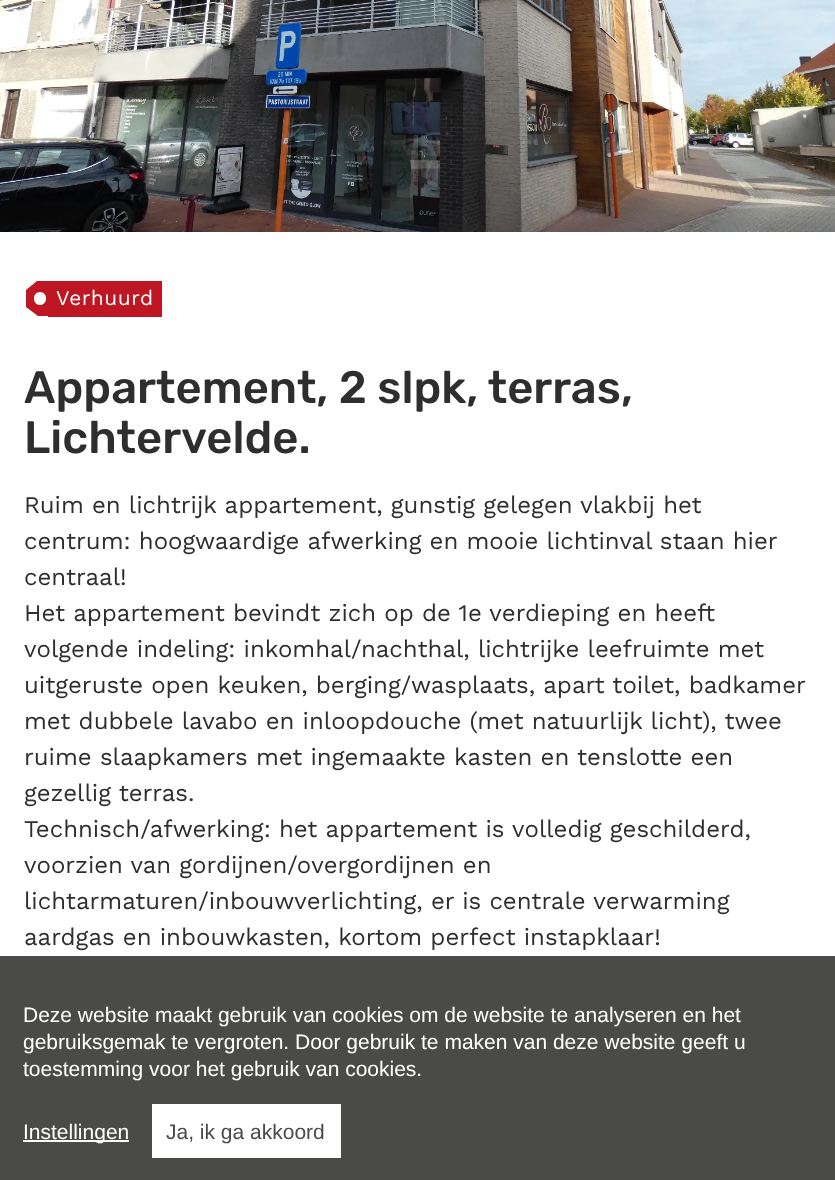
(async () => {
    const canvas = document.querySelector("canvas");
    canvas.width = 835;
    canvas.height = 1180;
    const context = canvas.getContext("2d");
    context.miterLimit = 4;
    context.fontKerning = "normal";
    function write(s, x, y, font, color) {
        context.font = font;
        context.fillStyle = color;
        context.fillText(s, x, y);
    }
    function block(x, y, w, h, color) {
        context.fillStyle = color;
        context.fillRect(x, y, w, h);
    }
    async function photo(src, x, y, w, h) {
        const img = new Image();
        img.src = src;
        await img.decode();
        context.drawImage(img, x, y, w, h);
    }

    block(0, 0, 835, 1180, "rgb(255, 255, 255)");
    await photo("media/1.png", 0, 0, 835, 232);
    context.save();
    context.beginPath();
    context.rect(24, 281, 24, 36);
    context.clip();
    context.fillStyle = "rgb(190, 22, 34)";
    context.beginPath();
    context.moveTo(26, 307);
    context.lineTo(26, 290);
    context.lineTo(37, 281);
    context.lineTo(308, 281);
    context.lineTo(308, 316);
    context.lineTo(38, 316);
    context.closePath();
    context.moveTo(40, 292);
    context.bezierCurveTo(32, 292, 32, 305, 40, 305);
    context.bezierCurveTo(48, 305, 48, 292, 40, 292);
    context.closePath();
    context.fill("evenodd");
    context.restore();
    block(48, 281, 114, 36, "rgb(190, 22, 34)");
    context.letterSpacing = "0.5px";
    write("Verhuurd", 56, 305, "21px Work Sans", "rgb(255, 255, 255)");
    context.letterSpacing = "0px";
    write("Appartement, 2 slpk, terras,", 24, 403, "300 45.4px Rubik", "rgb(46, 46, 46)");
    write("Lichtervelde.", 24, 453, "300 45.4px Rubik", "rgb(46, 46, 46)");
    write("Ruim en lichtrijk appartement, gunstig gelegen vlakbij het", 24, 513, "24px Work Sans", "rgb(46, 46, 46)");
    write("centrum: hoogwaardige afwerking en mooie lichtinval staan hier", 24, 549, "24px Work Sans", "rgb(46, 46, 46)");
    write("centraal!", 24, 585, "24px Work Sans", "rgb(46, 46, 46)");
    write("Het appartement bevindt zich op de 1e verdieping en heeft", 24, 621, "24px Work Sans", "rgb(46, 46, 46)");
    write("volgende indeling: inkomhal/nachthal, lichtrijke leefruimte met", 24, 657, "24px Work Sans", "rgb(46, 46, 46)");
    write("uitgeruste open keuken, berging/wasplaats, apart toilet, badkamer", 24, 693, "24px Work Sans", "rgb(46, 46, 46)");
    write("met dubbele lavabo en inloopdouche (met natuurlijk licht), twee", 24, 729, "24px Work Sans", "rgb(46, 46, 46)");
    write("ruime slaapkamers met ingemaakte kasten en tenslotte een", 24, 765, "24px Work Sans", "rgb(46, 46, 46)");
    write("gezellig terras.", 24, 801, "24px Work Sans", "rgb(46, 46, 46)");
    write("Technisch/afwerking: het appartement is volledig geschilderd,", 24, 837, "24px Work Sans", "rgb(46, 46, 46)");
    write("voorzien van gordijnen/overgordijnen en", 24, 873, "24px Work Sans", "rgb(46, 46, 46)");
    write("lichtarmaturen/inbouwverlichting, er is centrale verwarming", 24, 909, "24px Work Sans", "rgb(46, 46, 46)");
    write("aardgas en inbouwkasten, kortom perfect instapklaar!", 24, 945, "24px Work Sans", "rgb(46, 46, 46)");
    block(0, 956, 835, 224, "rgb(74, 74, 73)");
    write("Deze website maakt gebruik van cookies om de website te analyseren en het", 23, 1022, "21px Liberation Sans", "rgb(255, 255, 255)");
    write("gebruiksgemak te vergroten. Door gebruik te maken van deze website geeft u", 23, 1049, "21px Liberation Sans", "rgb(255, 255, 255)");
    write("toestemming voor het gebruik van cookies.", 23, 1076, "21px Liberation Sans", "rgb(255, 255, 255)");
    block(23, 1140, 106, 2, "rgb(255, 255, 255)");
    write("Instellingen", 23, 1139, "21px Liberation Sans", "rgb(255, 255, 255)");
    block(152, 1104, 189, 54, "rgb(255, 255, 255)");
    write("Ja, ik ga akkoord", 166, 1139, "21px Liberation Sans", "rgb(74, 74, 73)");
})();
